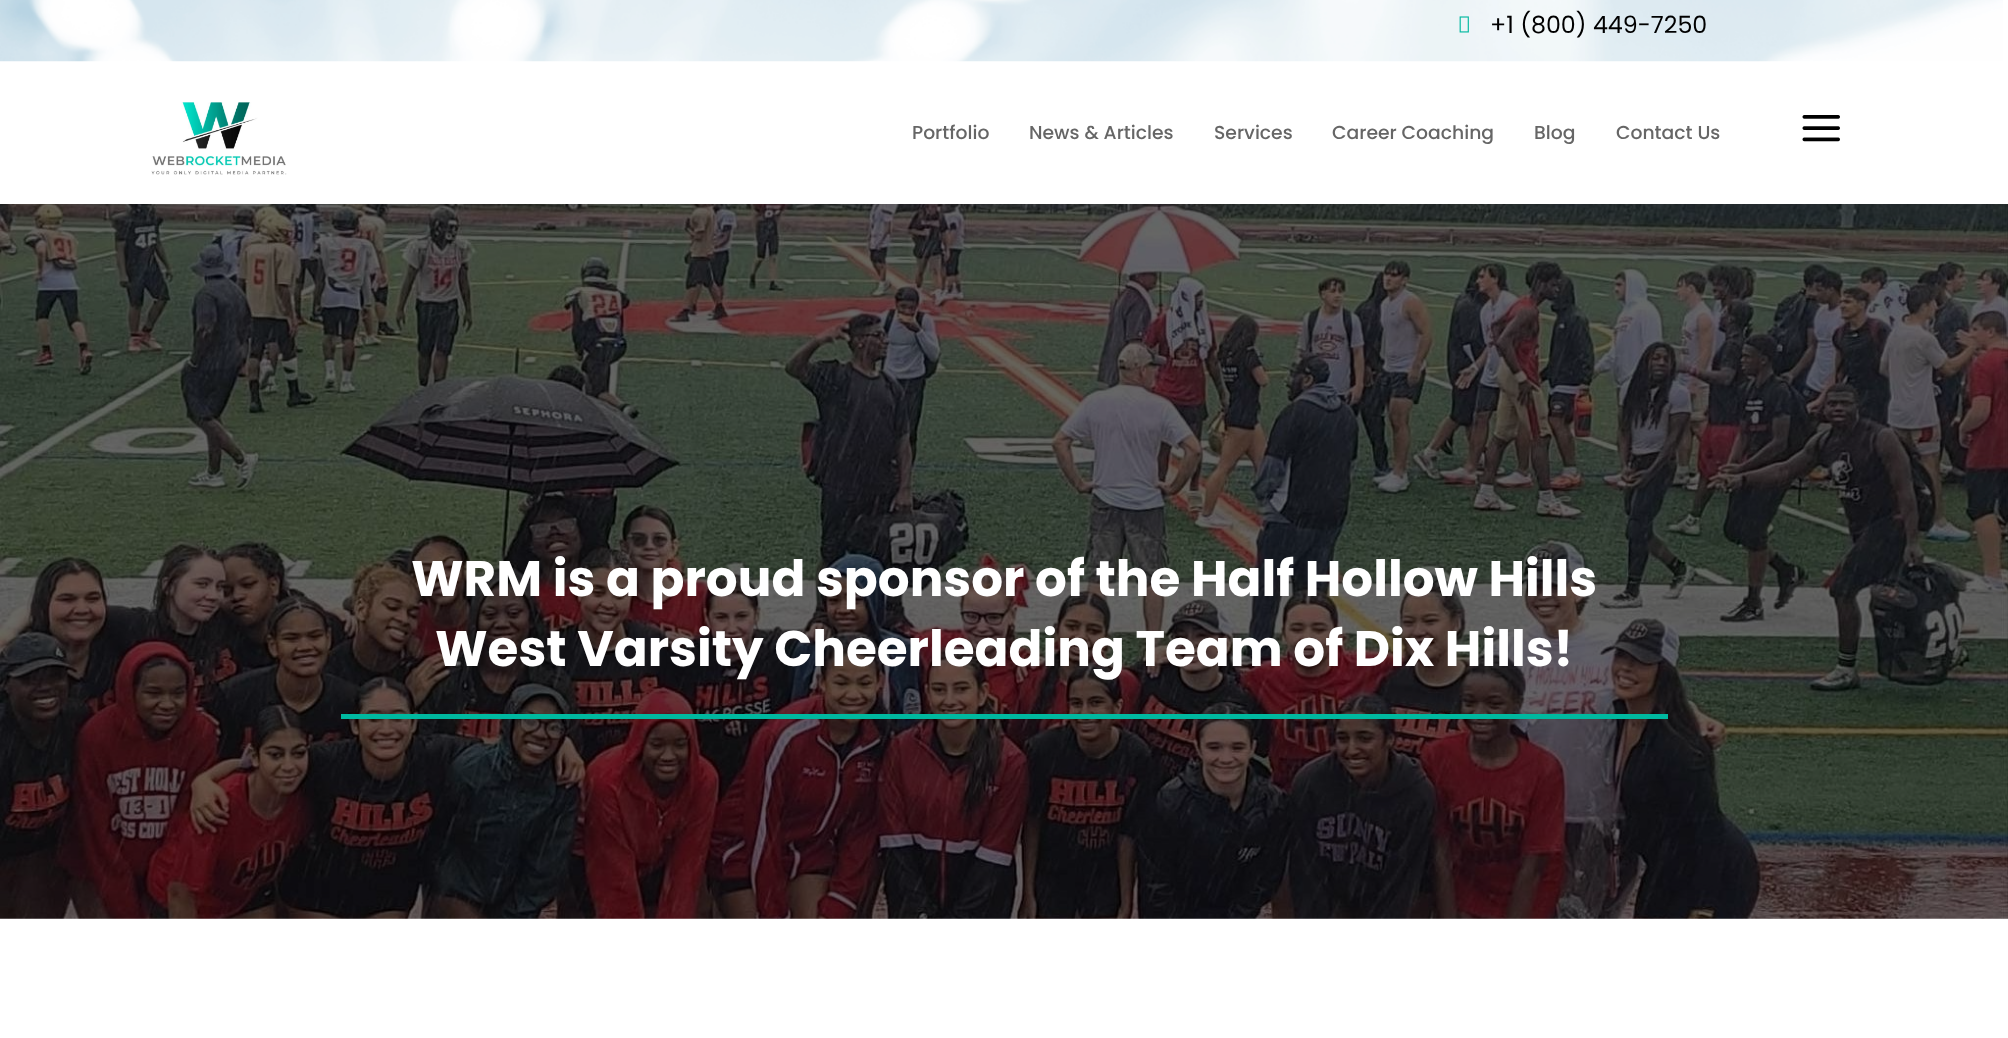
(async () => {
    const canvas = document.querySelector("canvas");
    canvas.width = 2008;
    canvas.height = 1038;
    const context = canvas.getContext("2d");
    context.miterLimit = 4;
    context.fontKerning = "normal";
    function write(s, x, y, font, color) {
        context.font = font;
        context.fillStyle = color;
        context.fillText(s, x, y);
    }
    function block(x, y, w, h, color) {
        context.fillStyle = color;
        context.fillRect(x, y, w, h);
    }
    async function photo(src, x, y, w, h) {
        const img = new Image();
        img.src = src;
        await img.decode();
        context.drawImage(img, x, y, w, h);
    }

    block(0, 0, 2008, 1038, "rgb(255, 255, 255)");
    await photo("media/1.png", 0, 0, 2003, 62);
    await photo("media/2.png", 1459, 16, 10, 17);
    write("+1 (800) 449-7250", 1490, 33, "23.75px Poppins", "rgb(0, 0, 0)");
    await photo("media/3.png", 151, 102, 136, 73);
    write("Portfolio", 912, 139, "500 18.75px Poppins", "rgb(102, 102, 102)");
    write("News & Articles", 1029, 139, "500 18.75px Poppins", "rgb(102, 102, 102)");
    write("Services", 1214, 139, "500 18.75px Poppins", "rgb(102, 102, 102)");
    write("Career Coaching", 1332, 139, "500 18.75px Poppins", "rgb(102, 102, 102)");
    write("Blog", 1534, 139, "500 18.75px Poppins", "rgb(102, 102, 102)");
    write("Contact Us", 1616, 139, "500 18.75px Poppins", "rgb(102, 102, 102)");
    await photo("media/4.png", 1802, 115, 38, 27);
    await photo("media/5.png", 0, 204, 2008, 715);
    write("WRM is a proud sponsor of the Half Hollow Hills", 411, 596, "bold 50px Poppins", "rgb(255, 255, 255)");
    write("West Varsity Cheerleading Team of Dix Hills!", 435, 666, "bold 50px Poppins", "rgb(255, 255, 255)");
    block(341, 714, 1327, 5, "rgb(0, 184, 159)");
})();
